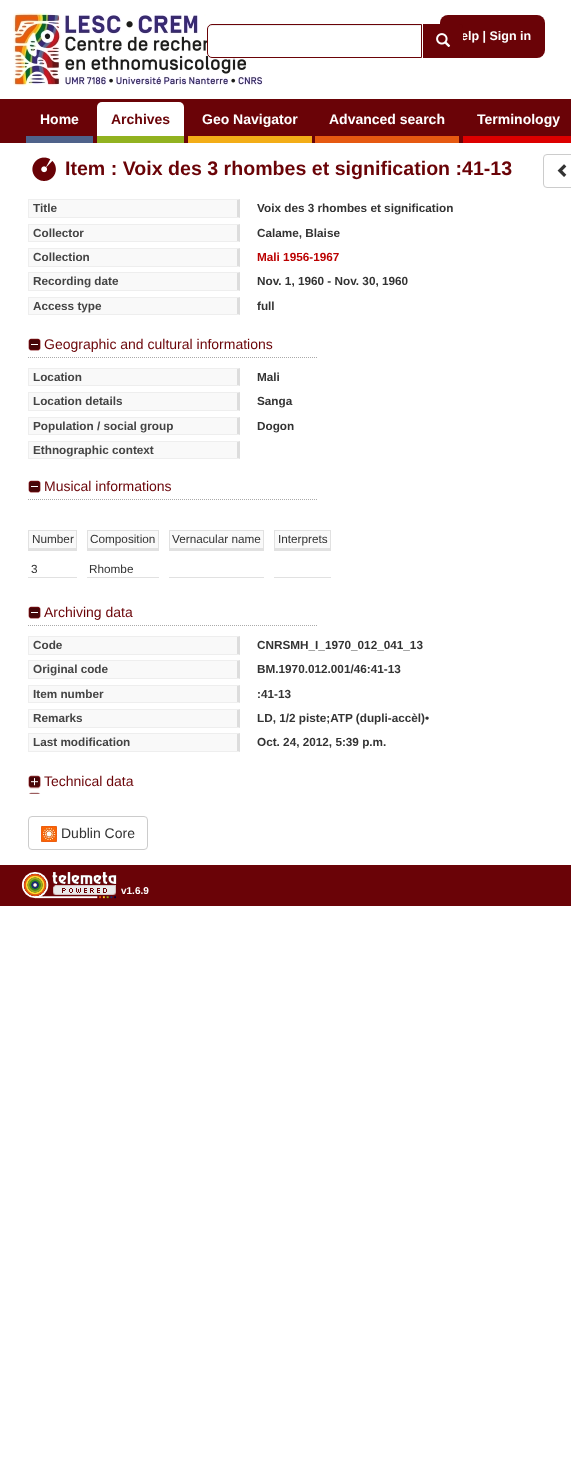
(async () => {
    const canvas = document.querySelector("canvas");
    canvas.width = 571;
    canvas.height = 1466;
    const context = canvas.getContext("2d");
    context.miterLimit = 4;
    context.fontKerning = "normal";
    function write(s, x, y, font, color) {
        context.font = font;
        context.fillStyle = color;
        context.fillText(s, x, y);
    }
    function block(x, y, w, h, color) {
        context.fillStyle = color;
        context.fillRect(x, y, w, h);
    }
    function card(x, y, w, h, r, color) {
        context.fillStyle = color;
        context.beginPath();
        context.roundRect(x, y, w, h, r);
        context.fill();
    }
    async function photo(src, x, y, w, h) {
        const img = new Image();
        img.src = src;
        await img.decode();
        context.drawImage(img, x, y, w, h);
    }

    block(0, 0, 571, 1466, "rgb(255, 255, 255)");
    await photo("media/1.png", 13, 13, 250, 73);
    context.beginPath();
    context.roundRect(207, 24, 215, 34, [5, 0, 0, 5]);
    context.fill();
    context.fillStyle = "rgb(236, 236, 236)";
    context.beginPath();
    context.moveTo(212, 26);
    context.lineTo(421, 26);
    context.lineTo(421, 25);
    context.lineTo(210, 25);
    context.bezierCurveTo(208, 26, 208, 28, 208, 30);
    context.bezierCurveTo(208, 28, 210, 26, 212, 26);
    context.closePath();
    context.fill();
    context.beginPath();
    context.roundRect(207.5, 24.5, 214, 33, [4.5, 0, 0, 4.5]);
    context.strokeStyle = "rgb(106, 3, 7)";
    context.stroke();
    card(440, 15, 105, 43, 8, "rgb(106, 3, 7)");
    write("elp | Sign in", 461, 40, "bold 12.5px Liberation Sans", "rgb(255, 255, 255)");
    context.fillStyle = "rgb(106, 3, 7)";
    context.beginPath();
    context.roundRect(423, 24, 40, 34, [0, 4, 4, 0]);
    context.fill();
    await photo("media/2.png", 436, 33, 15, 14);
    block(0, 99, 571, 44, "rgb(106, 3, 7)");
    block(26, 136, 67, 7, "rgb(79, 98, 138)");
    write("Home", 40, 124, "bold 14px Liberation Sans", "rgb(255, 255, 255)");
    context.beginPath();
    context.roundRect(97, 102, 87, 41, [5, 5, 0, 0]);
    context.fill();
    block(97, 136, 87, 7, "rgb(146, 178, 32)");
    write("Archives", 111, 124, "bold 14px Liberation Sans", "rgb(106, 3, 7)");
    block(188, 136, 124, 7, "rgb(243, 173, 23)");
    write("Geo Navigator", 202, 124, "bold 14px Liberation Sans", "rgb(255, 255, 255)");
    block(315, 136, 144, 7, "rgb(230, 89, 17)");
    write("Advanced search", 329, 124, "bold 14px Liberation Sans", "rgb(255, 255, 255)");
    block(463, 136, 108, 7, "rgb(221, 0, 0)");
    write("Terminology", 477, 124, "bold 14px Liberation Sans", "rgb(255, 255, 255)");
    await photo("media/3.png", 32, 157, 24, 24);
    write("Item : Voix des 3 rhombes et signification :41-13", 65, 175, "bold 19.6px Liberation Sans", "rgb(106, 3, 7)");
    context.beginPath();
    context.roundRect(543.5, 154.5, 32, 33, 3.5);
    context.strokeStyle = "rgb(204, 204, 204)";
    context.stroke();
    await photo("media/4.png", 557, 164, 10, 13);
    block(29, 200, 208, 17, "rgb(249, 249, 249)");
    context.fillStyle = "rgb(238, 238, 238)";
    context.beginPath();
    context.moveTo(28, 199);
    context.lineTo(240, 199);
    context.lineTo(237, 200);
    context.lineTo(29, 200);
    context.closePath();
    context.fill();
    context.fillStyle = "rgb(221, 221, 221)";
    context.beginPath();
    context.moveTo(240, 199);
    context.lineTo(240, 218);
    context.lineTo(237, 217);
    context.lineTo(237, 200);
    context.closePath();
    context.fill();
    context.fillStyle = "rgb(238, 238, 238)";
    context.beginPath();
    context.moveTo(240, 218);
    context.lineTo(28, 218);
    context.lineTo(29, 217);
    context.lineTo(237, 217);
    context.closePath();
    context.fill();
    block(28, 199, 1, 19, "rgb(238, 238, 238)");
    write("Title", 33, 212, "bold 11.75px Liberation Sans", "rgb(68, 68, 68)");
    write("Voix des 3 rhombes et signification", 257, 212, "bold 11.75px Liberation Sans", "rgb(51, 51, 51)");
    block(29, 225, 208, 16, "rgb(249, 249, 249)");
    context.fillStyle = "rgb(238, 238, 238)";
    context.beginPath();
    context.moveTo(28, 224);
    context.lineTo(240, 224);
    context.lineTo(237, 225);
    context.lineTo(29, 225);
    context.closePath();
    context.fill();
    context.fillStyle = "rgb(221, 221, 221)";
    context.beginPath();
    context.moveTo(240, 224);
    context.lineTo(240, 242);
    context.lineTo(237, 241);
    context.lineTo(237, 225);
    context.closePath();
    context.fill();
    context.fillStyle = "rgb(238, 238, 238)";
    context.beginPath();
    context.moveTo(240, 242);
    context.lineTo(28, 242);
    context.lineTo(29, 241);
    context.lineTo(237, 241);
    context.closePath();
    context.fill();
    block(28, 224, 1, 18, "rgb(238, 238, 238)");
    write("Collector", 33, 237, "bold 11.75px Liberation Sans", "rgb(68, 68, 68)");
    write("Calame, Blaise", 257, 237, "bold 11.75px Liberation Sans", "rgb(51, 51, 51)");
    block(29, 249, 208, 17, "rgb(249, 249, 249)");
    context.fillStyle = "rgb(238, 238, 238)";
    context.beginPath();
    context.moveTo(28, 248);
    context.lineTo(240, 248);
    context.lineTo(237, 249);
    context.lineTo(29, 249);
    context.closePath();
    context.fill();
    context.fillStyle = "rgb(221, 221, 221)";
    context.beginPath();
    context.moveTo(240, 248);
    context.lineTo(240, 267);
    context.lineTo(237, 266);
    context.lineTo(237, 249);
    context.closePath();
    context.fill();
    context.fillStyle = "rgb(238, 238, 238)";
    context.beginPath();
    context.moveTo(240, 267);
    context.lineTo(28, 267);
    context.lineTo(29, 266);
    context.lineTo(237, 266);
    context.closePath();
    context.fill();
    block(28, 248, 1, 19, "rgb(238, 238, 238)");
    write("Collection", 33, 261, "bold 11.75px Liberation Sans", "rgb(68, 68, 68)");
    write("Mali 1956-1967", 257, 261, "bold 11.75px Liberation Sans", "rgb(187, 0, 0)");
    block(29, 273, 208, 17, "rgb(249, 249, 249)");
    context.fillStyle = "rgb(238, 238, 238)";
    context.beginPath();
    context.moveTo(28, 272);
    context.lineTo(240, 272);
    context.lineTo(237, 273);
    context.lineTo(29, 273);
    context.closePath();
    context.fill();
    context.fillStyle = "rgb(221, 221, 221)";
    context.beginPath();
    context.moveTo(240, 272);
    context.lineTo(240, 291);
    context.lineTo(237, 290);
    context.lineTo(237, 273);
    context.closePath();
    context.fill();
    context.fillStyle = "rgb(238, 238, 238)";
    context.beginPath();
    context.moveTo(240, 291);
    context.lineTo(28, 291);
    context.lineTo(29, 290);
    context.lineTo(237, 290);
    context.closePath();
    context.fill();
    block(28, 272, 1, 19, "rgb(238, 238, 238)");
    write("Recording date", 33, 285, "bold 11.75px Liberation Sans", "rgb(68, 68, 68)");
    write("Nov. 1, 1960 - Nov. 30, 1960", 257, 285, "bold 11.75px Liberation Sans", "rgb(51, 51, 51)");
    block(29, 298, 208, 16, "rgb(249, 249, 249)");
    context.fillStyle = "rgb(238, 238, 238)";
    context.beginPath();
    context.moveTo(28, 297);
    context.lineTo(240, 297);
    context.lineTo(237, 298);
    context.lineTo(29, 298);
    context.closePath();
    context.fill();
    context.fillStyle = "rgb(221, 221, 221)";
    context.beginPath();
    context.moveTo(240, 297);
    context.lineTo(240, 315);
    context.lineTo(237, 314);
    context.lineTo(237, 298);
    context.closePath();
    context.fill();
    context.fillStyle = "rgb(238, 238, 238)";
    context.beginPath();
    context.moveTo(240, 315);
    context.lineTo(28, 315);
    context.lineTo(29, 314);
    context.lineTo(237, 314);
    context.closePath();
    context.fill();
    block(28, 297, 1, 18, "rgb(238, 238, 238)");
    write("Access type", 33, 310, "bold 11.75px Liberation Sans", "rgb(68, 68, 68)");
    write("full", 257, 310, "bold 11.75px Liberation Sans", "rgb(51, 51, 51)");
    context.beginPath();
    context.moveTo(28, 357.5);
    context.lineTo(317, 357.5);
    context.strokeStyle = "rgb(170, 170, 170)";
    context.setLineDash([1, 1]);
    context.stroke();
    await photo("media/5.png", 28, 338, 13, 13);
    write("Geographic and cultural informations", 44, 349, "14px Liberation Sans", "rgb(106, 3, 7)");
    block(29, 369, 208, 16, "rgb(249, 249, 249)");
    context.fillStyle = "rgb(238, 238, 238)";
    context.beginPath();
    context.moveTo(28, 368);
    context.lineTo(240, 368);
    context.lineTo(237, 369);
    context.lineTo(29, 369);
    context.closePath();
    context.fill();
    context.fillStyle = "rgb(221, 221, 221)";
    context.beginPath();
    context.moveTo(240, 368);
    context.lineTo(240, 386);
    context.lineTo(237, 385);
    context.lineTo(237, 369);
    context.closePath();
    context.fill();
    context.fillStyle = "rgb(238, 238, 238)";
    context.beginPath();
    context.moveTo(240, 386);
    context.lineTo(28, 386);
    context.lineTo(29, 385);
    context.lineTo(237, 385);
    context.closePath();
    context.fill();
    block(28, 368, 1, 18, "rgb(238, 238, 238)");
    write("Location", 33, 381, "bold 11.75px Liberation Sans", "rgb(68, 68, 68)");
    write("Mali", 257, 381, "bold 11.75px Liberation Sans", "rgb(51, 51, 51)");
    block(29, 393, 208, 17, "rgb(249, 249, 249)");
    context.fillStyle = "rgb(238, 238, 238)";
    context.beginPath();
    context.moveTo(28, 392);
    context.lineTo(240, 392);
    context.lineTo(237, 393);
    context.lineTo(29, 393);
    context.closePath();
    context.fill();
    context.fillStyle = "rgb(221, 221, 221)";
    context.beginPath();
    context.moveTo(240, 392);
    context.lineTo(240, 411);
    context.lineTo(237, 410);
    context.lineTo(237, 393);
    context.closePath();
    context.fill();
    context.fillStyle = "rgb(238, 238, 238)";
    context.beginPath();
    context.moveTo(240, 411);
    context.lineTo(28, 411);
    context.lineTo(29, 410);
    context.lineTo(237, 410);
    context.closePath();
    context.fill();
    block(28, 392, 1, 19, "rgb(238, 238, 238)");
    write("Location details", 33, 405, "bold 11.75px Liberation Sans", "rgb(68, 68, 68)");
    write("Sanga", 257, 405, "bold 11.75px Liberation Sans", "rgb(51, 51, 51)");
    block(29, 418, 208, 16, "rgb(249, 249, 249)");
    context.fillStyle = "rgb(238, 238, 238)";
    context.beginPath();
    context.moveTo(28, 417);
    context.lineTo(240, 417);
    context.lineTo(237, 418);
    context.lineTo(29, 418);
    context.closePath();
    context.fill();
    context.fillStyle = "rgb(221, 221, 221)";
    context.beginPath();
    context.moveTo(240, 417);
    context.lineTo(240, 435);
    context.lineTo(237, 434);
    context.lineTo(237, 418);
    context.closePath();
    context.fill();
    context.fillStyle = "rgb(238, 238, 238)";
    context.beginPath();
    context.moveTo(240, 435);
    context.lineTo(28, 435);
    context.lineTo(29, 434);
    context.lineTo(237, 434);
    context.closePath();
    context.fill();
    block(28, 417, 1, 18, "rgb(238, 238, 238)");
    write("Population / social group", 33, 430, "bold 11.75px Liberation Sans", "rgb(68, 68, 68)");
    write("Dogon", 257, 430, "bold 11.75px Liberation Sans", "rgb(51, 51, 51)");
    block(29, 442, 208, 16, "rgb(249, 249, 249)");
    context.fillStyle = "rgb(238, 238, 238)";
    context.beginPath();
    context.moveTo(28, 441);
    context.lineTo(240, 441);
    context.lineTo(237, 442);
    context.lineTo(29, 442);
    context.closePath();
    context.fill();
    context.fillStyle = "rgb(221, 221, 221)";
    context.beginPath();
    context.moveTo(240, 441);
    context.lineTo(240, 459);
    context.lineTo(237, 458);
    context.lineTo(237, 442);
    context.closePath();
    context.fill();
    context.fillStyle = "rgb(238, 238, 238)";
    context.beginPath();
    context.moveTo(240, 459);
    context.lineTo(28, 459);
    context.lineTo(29, 458);
    context.lineTo(237, 458);
    context.closePath();
    context.fill();
    block(28, 441, 1, 18, "rgb(238, 238, 238)");
    write("Ethnographic context", 33, 454, "bold 11.75px Liberation Sans", "rgb(68, 68, 68)");
    context.beginPath();
    context.moveTo(28, 499.5);
    context.lineTo(317, 499.5);
    context.stroke();
    await photo("media/5.png", 28, 480, 13, 13);
    write("Musical informations", 44, 491, "14px Liberation Sans", "rgb(106, 3, 7)");
    block(29, 531, 47, 17, "rgb(249, 249, 249)");
    block(28, 530, 49, 1, "rgb(225, 225, 225)");
    block(76, 530, 1, 21, "rgb(225, 225, 225)");
    block(28, 548, 49, 3, "rgb(225, 225, 225)");
    block(28, 530, 1, 21, "rgb(225, 225, 225)");
    write("Number", 32, 543, "11.75px Liberation Sans", "rgb(51, 51, 51)");
    block(88, 531, 70, 17, "rgb(249, 249, 249)");
    block(87, 530, 72, 1, "rgb(225, 225, 225)");
    block(158, 530, 1, 21, "rgb(225, 225, 225)");
    block(87, 548, 72, 3, "rgb(225, 225, 225)");
    block(87, 530, 1, 21, "rgb(225, 225, 225)");
    write("Composition", 90, 543, "11.75px Liberation Sans", "rgb(51, 51, 51)");
    block(170, 531, 93, 17, "rgb(249, 249, 249)");
    block(169, 530, 95, 1, "rgb(225, 225, 225)");
    block(263, 530, 1, 21, "rgb(225, 225, 225)");
    block(169, 548, 95, 3, "rgb(225, 225, 225)");
    block(169, 530, 1, 21, "rgb(225, 225, 225)");
    write("Vernacular name", 172, 543, "11.75px Liberation Sans", "rgb(51, 51, 51)");
    block(275, 531, 55, 17, "rgb(249, 249, 249)");
    block(274, 530, 57, 1, "rgb(225, 225, 225)");
    block(330, 530, 1, 21, "rgb(225, 225, 225)");
    block(274, 548, 57, 3, "rgb(225, 225, 225)");
    block(274, 530, 1, 21, "rgb(225, 225, 225)");
    write("Interprets", 278, 543, "11.75px Liberation Sans", "rgb(51, 51, 51)");
    block(28, 577, 49, 1, "rgb(225, 225, 225)");
    write("3", 31, 573, "11.75px Liberation Sans", "rgb(51, 51, 51)");
    block(87, 577, 72, 1, "rgb(225, 225, 225)");
    write("Rhombe", 89, 573, "11.75px Liberation Sans", "rgb(51, 51, 51)");
    block(169, 577, 95, 1, "rgb(225, 225, 225)");
    block(274, 577, 57, 1, "rgb(225, 225, 225)");
    context.beginPath();
    context.moveTo(28, 625.5);
    context.lineTo(317, 625.5);
    context.stroke();
    await photo("media/5.png", 28, 606, 13, 13);
    write("Archiving data", 44, 617, "14px Liberation Sans", "rgb(106, 3, 7)");
    block(29, 637, 208, 17, "rgb(249, 249, 249)");
    context.fillStyle = "rgb(238, 238, 238)";
    context.beginPath();
    context.moveTo(28, 636);
    context.lineTo(240, 636);
    context.lineTo(237, 637);
    context.lineTo(29, 637);
    context.closePath();
    context.fill();
    context.fillStyle = "rgb(221, 221, 221)";
    context.beginPath();
    context.moveTo(240, 636);
    context.lineTo(240, 655);
    context.lineTo(237, 654);
    context.lineTo(237, 637);
    context.closePath();
    context.fill();
    context.fillStyle = "rgb(238, 238, 238)";
    context.beginPath();
    context.moveTo(240, 655);
    context.lineTo(28, 655);
    context.lineTo(29, 654);
    context.lineTo(237, 654);
    context.closePath();
    context.fill();
    block(28, 636, 1, 19, "rgb(238, 238, 238)");
    write("Code", 33, 649, "bold 11.75px Liberation Sans", "rgb(68, 68, 68)");
    write("CNRSMH_I_1970_012_041_13", 257, 649, "bold 11.75px Liberation Sans", "rgb(51, 51, 51)");
    block(29, 661, 208, 17, "rgb(249, 249, 249)");
    context.fillStyle = "rgb(238, 238, 238)";
    context.beginPath();
    context.moveTo(28, 660);
    context.lineTo(240, 660);
    context.lineTo(237, 661);
    context.lineTo(29, 661);
    context.closePath();
    context.fill();
    context.fillStyle = "rgb(221, 221, 221)";
    context.beginPath();
    context.moveTo(240, 660);
    context.lineTo(240, 679);
    context.lineTo(237, 678);
    context.lineTo(237, 661);
    context.closePath();
    context.fill();
    context.fillStyle = "rgb(238, 238, 238)";
    context.beginPath();
    context.moveTo(240, 679);
    context.lineTo(28, 679);
    context.lineTo(29, 678);
    context.lineTo(237, 678);
    context.closePath();
    context.fill();
    block(28, 660, 1, 19, "rgb(238, 238, 238)");
    write("Original code", 33, 673, "bold 11.75px Liberation Sans", "rgb(68, 68, 68)");
    write("BM.1970.012.001/46:41-13", 257, 673, "bold 11.75px Liberation Sans", "rgb(51, 51, 51)");
    block(29, 686, 208, 16, "rgb(249, 249, 249)");
    context.fillStyle = "rgb(238, 238, 238)";
    context.beginPath();
    context.moveTo(28, 685);
    context.lineTo(240, 685);
    context.lineTo(237, 686);
    context.lineTo(29, 686);
    context.closePath();
    context.fill();
    context.fillStyle = "rgb(221, 221, 221)";
    context.beginPath();
    context.moveTo(240, 685);
    context.lineTo(240, 703);
    context.lineTo(237, 702);
    context.lineTo(237, 686);
    context.closePath();
    context.fill();
    context.fillStyle = "rgb(238, 238, 238)";
    context.beginPath();
    context.moveTo(240, 703);
    context.lineTo(28, 703);
    context.lineTo(29, 702);
    context.lineTo(237, 702);
    context.closePath();
    context.fill();
    block(28, 685, 1, 18, "rgb(238, 238, 238)");
    write("Item number", 33, 698, "bold 11.75px Liberation Sans", "rgb(68, 68, 68)");
    write(":41-13", 257, 698, "bold 11.75px Liberation Sans", "rgb(51, 51, 51)");
    block(29, 710, 208, 17, "rgb(249, 249, 249)");
    context.fillStyle = "rgb(238, 238, 238)";
    context.beginPath();
    context.moveTo(28, 709);
    context.lineTo(240, 709);
    context.lineTo(237, 710);
    context.lineTo(29, 710);
    context.closePath();
    context.fill();
    context.fillStyle = "rgb(221, 221, 221)";
    context.beginPath();
    context.moveTo(240, 709);
    context.lineTo(240, 728);
    context.lineTo(237, 727);
    context.lineTo(237, 710);
    context.closePath();
    context.fill();
    context.fillStyle = "rgb(238, 238, 238)";
    context.beginPath();
    context.moveTo(240, 728);
    context.lineTo(28, 728);
    context.lineTo(29, 727);
    context.lineTo(237, 727);
    context.closePath();
    context.fill();
    block(28, 709, 1, 19, "rgb(238, 238, 238)");
    write("Remarks", 33, 722, "bold 11.75px Liberation Sans", "rgb(68, 68, 68)");
    write("LD, 1/2 piste;ATP (dupli-accèl)•", 257, 722, "bold 11.75px Liberation Sans", "rgb(51, 51, 51)");
    block(29, 734, 208, 17, "rgb(249, 249, 249)");
    context.fillStyle = "rgb(238, 238, 238)";
    context.beginPath();
    context.moveTo(28, 733);
    context.lineTo(240, 733);
    context.lineTo(237, 734);
    context.lineTo(29, 734);
    context.closePath();
    context.fill();
    context.fillStyle = "rgb(221, 221, 221)";
    context.beginPath();
    context.moveTo(240, 733);
    context.lineTo(240, 752);
    context.lineTo(237, 751);
    context.lineTo(237, 734);
    context.closePath();
    context.fill();
    context.fillStyle = "rgb(238, 238, 238)";
    context.beginPath();
    context.moveTo(240, 752);
    context.lineTo(28, 752);
    context.lineTo(29, 751);
    context.lineTo(237, 751);
    context.closePath();
    context.fill();
    block(28, 733, 1, 19, "rgb(238, 238, 238)");
    write("Last modification", 33, 746, "bold 11.75px Liberation Sans", "rgb(68, 68, 68)");
    write("Oct. 24, 2012, 5:39 p.m.", 257, 746, "bold 11.75px Liberation Sans", "rgb(51, 51, 51)");
    await photo("media/6.png", 28, 775, 13, 19);
    write("Technical data", 44, 786, "14px Liberation Sans", "rgb(106, 3, 7)");
    context.beginPath();
    context.roundRect(28.5, 816.5, 119, 33, 3.5);
    context.strokeStyle = "rgb(204, 204, 204)";
    context.setLineDash([]);
    context.stroke();
    await photo("media/7.png", 41, 826, 16, 16);
    write("Dublin Core", 61, 838, "14px Liberation Sans", "rgb(51, 51, 51)");
    block(0, 865, 571, 41, "rgb(106, 3, 7)");
    await photo("media/8.png", 21, 871, 96, 28);
    write("v1.6.9", 121, 894, "bold 10px Liberation Sans", "rgb(255, 255, 255)");
})();
